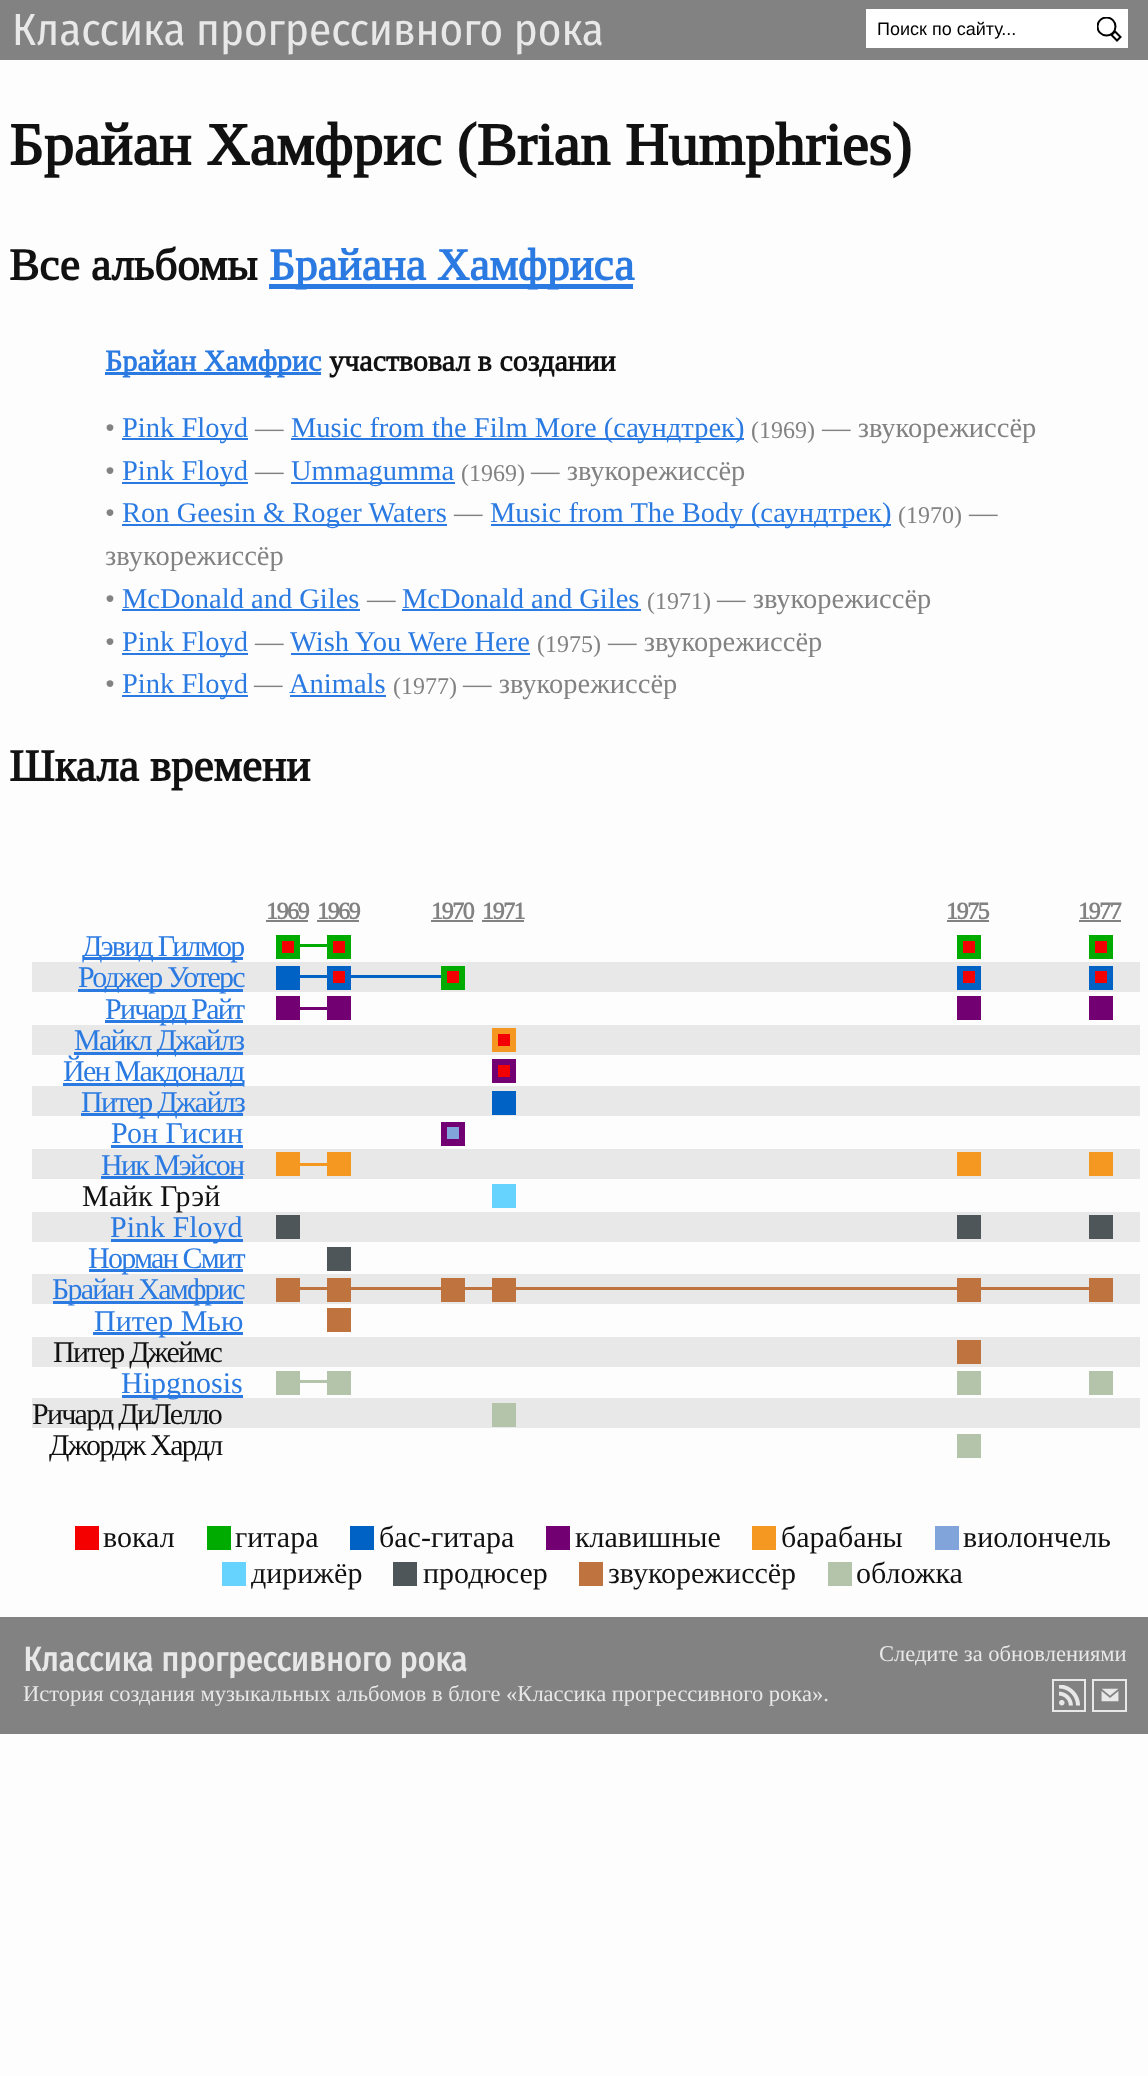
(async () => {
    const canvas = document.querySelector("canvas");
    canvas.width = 1148;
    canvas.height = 2076;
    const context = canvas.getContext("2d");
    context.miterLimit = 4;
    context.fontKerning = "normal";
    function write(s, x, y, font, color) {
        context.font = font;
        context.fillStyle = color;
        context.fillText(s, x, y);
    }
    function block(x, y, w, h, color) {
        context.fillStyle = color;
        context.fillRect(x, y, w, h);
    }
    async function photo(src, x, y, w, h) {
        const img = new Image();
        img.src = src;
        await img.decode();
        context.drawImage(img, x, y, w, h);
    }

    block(0, 0, 1148, 2076, "rgb(253, 253, 253)");
    block(0, 0, 1148, 60, "rgb(130, 130, 130)");
    write("Классика прогрессивного рока", 12, 45, "45px Fira Sans Condensed", "rgb(232, 232, 232)");
    block(866, 9, 262, 39, "rgb(255, 255, 255)");
    write("Поиск по сайту...", 877, 35, "18px Liberation Sans", "rgb(0, 0, 0)");
    context.save();
    context.beginPath();
    context.rect(1097, 17, 25, 25);
    context.clip();
    context.beginPath();
    context.arc(1106.5, 26.5, 9, 0, Math.PI * 2);
    context.strokeStyle = "rgb(0, 0, 0)";
    context.lineWidth = 2;
    context.stroke();
    context.restore();
    context.beginPath();
    context.moveTo(1111.5, 35);
    context.lineTo(1115, 31.5);
    context.lineTo(1120.5, 37);
    context.lineTo(1117, 40.5);
    context.closePath();
    context.strokeStyle = "rgb(0, 0, 0)";
    context.lineWidth = 2;
    context.stroke();
    write("Брайан Хамфрис (Brian Humphries)", 9, 165, "bold 60px Tinos", "rgb(17, 17, 17)");
    write("Все альбомы", 9, 280, "bold 45px Tinos", "rgb(17, 17, 17)");
    block(269, 284, 364, 5, "rgb(42, 122, 226)");
    write("Брайана Хамфриса", 269, 280, "bold 45px Tinos", "rgb(42, 122, 226)");
    block(105, 372, 216, 3, "rgb(42, 122, 226)");
    write("Брайан Хамфрис", 105, 371, "bold 30px Tinos", "rgb(42, 122, 226)");
    write("участвовал в создании", 329, 371, "bold 30px Tinos", "rgb(17, 17, 17)");
    write("•", 105, 437, "28.5px Tinos", "rgb(130, 130, 130)");
    block(122, 438, 126, 2, "rgb(42, 122, 226)");
    write("Pink Floyd", 122, 437, "28.5px Tinos", "rgb(42, 122, 226)");
    write("—", 255, 437, "28.5px Tinos", "rgb(130, 130, 130)");
    block(291, 438, 453, 2, "rgb(42, 122, 226)");
    write("Music from the Film More (саундтрек)", 291, 437, "28.5px Tinos", "rgb(42, 122, 226)");
    write("(1969)", 751, 438, "24px Tinos", "rgb(130, 130, 130)");
    write("— звукорежиссёр", 822, 437, "28.5px Tinos", "rgb(130, 130, 130)");
    write("•", 105, 480, "28.5px Tinos", "rgb(130, 130, 130)");
    block(122, 482, 126, 2, "rgb(42, 122, 226)");
    write("Pink Floyd", 122, 480, "28.5px Tinos", "rgb(42, 122, 226)");
    write("—", 255, 480, "28.5px Tinos", "rgb(130, 130, 130)");
    block(291, 482, 164, 2, "rgb(42, 122, 226)");
    write("Ummagumma", 291, 480, "28.5px Tinos", "rgb(42, 122, 226)");
    write("(1969)", 461, 481, "24px Tinos", "rgb(130, 130, 130)");
    write("— звукорежиссёр", 531, 480, "28.5px Tinos", "rgb(130, 130, 130)");
    write("•", 105, 522, "28.5px Tinos", "rgb(130, 130, 130)");
    block(122, 524, 325, 2, "rgb(42, 122, 226)");
    write("Ron Geesin & Roger Waters", 122, 522, "28.5px Tinos", "rgb(42, 122, 226)");
    write("—", 454, 522, "28.5px Tinos", "rgb(130, 130, 130)");
    block(491, 524, 400, 2, "rgb(42, 122, 226)");
    write("Music from The Body (саундтрек)", 490, 522, "28.5px Tinos", "rgb(42, 122, 226)");
    write("(1970)", 898, 523, "24px Tinos", "rgb(130, 130, 130)");
    write("—", 969, 522, "28.5px Tinos", "rgb(130, 130, 130)");
    write("звукорежиссёр", 105, 565, "28.5px Tinos", "rgb(130, 130, 130)");
    write("•", 105, 608, "28.5px Tinos", "rgb(130, 130, 130)");
    write("McDonald and Giles", 122, 608, "28.5px Tinos", "rgb(42, 122, 226)");
    block(122, 609, 238, 2, "rgb(42, 122, 226)");
    write("—", 367, 608, "28.5px Tinos", "rgb(130, 130, 130)");
    write("McDonald and Giles", 402, 608, "28.5px Tinos", "rgb(42, 122, 226)");
    write("(1971)", 647, 609, "24px Tinos", "rgb(130, 130, 130)");
    block(402, 609, 239, 2, "rgb(42, 122, 226)");
    write("— звукорежиссёр", 717, 608, "28.5px Tinos", "rgb(130, 130, 130)");
    write("•", 105, 651, "28.5px Tinos", "rgb(130, 130, 130)");
    block(122, 653, 126, 2, "rgb(42, 122, 226)");
    write("Pink Floyd", 122, 651, "28.5px Tinos", "rgb(42, 122, 226)");
    write("—", 255, 651, "28.5px Tinos", "rgb(130, 130, 130)");
    write("Wish You Were Here", 290, 651, "28.5px Tinos", "rgb(42, 122, 226)");
    write("(1975)", 537, 652, "24px Tinos", "rgb(130, 130, 130)");
    block(291, 653, 239, 2, "rgb(42, 122, 226)");
    write("— звукорежиссёр", 608, 651, "28.5px Tinos", "rgb(130, 130, 130)");
    write("•", 105, 693, "28.5px Tinos", "rgb(130, 130, 130)");
    block(122, 695, 126, 2, "rgb(42, 122, 226)");
    write("Pink Floyd", 122, 693, "28.5px Tinos", "rgb(42, 122, 226)");
    write("—", 254, 693, "28.5px Tinos", "rgb(130, 130, 130)");
    write("Animals", 289, 693, "28.5px Tinos", "rgb(42, 122, 226)");
    write("(1977)", 393, 694, "24px Tinos", "rgb(130, 130, 130)");
    block(290, 695, 96, 2, "rgb(42, 122, 226)");
    write("— звукорежиссёр", 463, 693, "28.5px Tinos", "rgb(130, 130, 130)");
    write("Шкала времени", 9, 781, "bold 45px Tinos", "rgb(17, 17, 17)");
    context.letterSpacing = "-1.5px";
    write("1969", 266, 919, "bold 24px Tinos", "rgb(130, 130, 130)");
    block(266, 920, 42, 2, "rgb(130, 130, 130)");
    write("1969", 317, 919, "bold 24px Tinos", "rgb(130, 130, 130)");
    block(317, 920, 42, 2, "rgb(130, 130, 130)");
    write("1970", 431, 919, "bold 24px Tinos", "rgb(130, 130, 130)");
    block(431, 920, 42, 2, "rgb(130, 130, 130)");
    write("1971", 482, 919, "bold 24px Tinos", "rgb(130, 130, 130)");
    block(482, 920, 42, 2, "rgb(130, 130, 130)");
    write("1975", 946, 919, "bold 24px Tinos", "rgb(130, 130, 130)");
    block(947, 920, 42, 2, "rgb(130, 130, 130)");
    write("1977", 1078, 919, "bold 24px Tinos", "rgb(130, 130, 130)");
    block(1079, 920, 42, 2, "rgb(130, 130, 130)");
    block(83, 957, 160, 3, "rgb(42, 122, 226)");
    block(32, 962, 1108, 30, "rgb(232, 232, 232)");
    context.letterSpacing = "-1.75px";
    write("Дэвид Гилмор", 82, 956, "30px Tinos", "rgb(42, 122, 226)");
    block(276, 935, 24, 24, "rgb(0, 171, 0)");
    block(300, 944, 27, 3, "rgb(0, 171, 0)");
    block(282, 941, 12, 12, "rgb(245, 0, 0)");
    block(327, 935, 24, 24, "rgb(0, 171, 0)");
    block(333, 941, 12, 12, "rgb(245, 0, 0)");
    block(957, 935, 24, 24, "rgb(0, 171, 0)");
    block(963, 941, 12, 12, "rgb(245, 0, 0)");
    block(1089, 935, 24, 24, "rgb(0, 171, 0)");
    block(1095, 941, 12, 12, "rgb(245, 0, 0)");
    block(78, 989, 165, 3, "rgb(42, 122, 226)");
    write("Роджер Уотерс", 78, 987, "30px Tinos", "rgb(42, 122, 226)");
    block(276, 966, 24, 24, "rgb(0, 98, 196)");
    block(300, 975, 27, 3, "rgb(0, 98, 196)");
    block(327, 966, 24, 24, "rgb(0, 98, 196)");
    block(351, 975, 90, 3, "rgb(0, 98, 196)");
    block(333, 971, 12, 12, "rgb(245, 0, 0)");
    block(441, 966, 24, 24, "rgb(0, 171, 0)");
    block(447, 971, 12, 12, "rgb(245, 0, 0)");
    block(957, 966, 24, 24, "rgb(0, 98, 196)");
    block(963, 971, 12, 12, "rgb(245, 0, 0)");
    block(1089, 966, 24, 24, "rgb(0, 98, 196)");
    block(1095, 971, 12, 12, "rgb(245, 0, 0)");
    block(105, 1020, 138, 3, "rgb(42, 122, 226)");
    block(32, 1025, 1108, 30, "rgb(232, 232, 232)");
    write("Ричард Райт", 105, 1019, "30px Tinos", "rgb(42, 122, 226)");
    block(276, 996, 24, 24, "rgb(114, 0, 114)");
    block(300, 1007, 27, 3, "rgb(114, 0, 114)");
    block(327, 996, 24, 24, "rgb(114, 0, 114)");
    block(957, 996, 24, 24, "rgb(114, 0, 114)");
    block(1089, 996, 24, 24, "rgb(114, 0, 114)");
    block(74, 1052, 169, 3, "rgb(42, 122, 226)");
    write("Майкл Джайлз", 74, 1050, "30px Tinos", "rgb(42, 122, 226)");
    block(492, 1028, 24, 24, "rgb(245, 152, 34)");
    block(498, 1034, 12, 12, "rgb(245, 0, 0)");
    block(63, 1083, 180, 3, "rgb(42, 122, 226)");
    block(32, 1086, 1108, 30, "rgb(232, 232, 232)");
    write("Йен Макдоналд", 63, 1081, "30px Tinos", "rgb(42, 122, 226)");
    block(492, 1059, 24, 24, "rgb(114, 0, 114)");
    block(498, 1065, 12, 12, "rgb(245, 0, 0)");
    block(81, 1113, 162, 3, "rgb(42, 122, 226)");
    write("Питер Джайлз", 81, 1112, "30px Tinos", "rgb(42, 122, 226)");
    block(492, 1091, 24, 24, "rgb(0, 98, 196)");
    context.letterSpacing = "0px";
    write("Рон Гисин", 111, 1143, "30px Tinos", "rgb(42, 122, 226)");
    block(111, 1145, 132, 3, "rgb(42, 122, 226)");
    block(441, 1122, 24, 24, "rgb(114, 0, 114)");
    block(447, 1127, 12, 12, "rgb(129, 165, 219)");
    block(32, 1149, 1108, 30, "rgb(232, 232, 232)");
    context.letterSpacing = "-1.75px";
    write("Ник Мэйсон", 101, 1175, "30px Tinos", "rgb(42, 122, 226)");
    block(101, 1176, 142, 3, "rgb(42, 122, 226)");
    block(276, 1152, 24, 24, "rgb(245, 152, 34)");
    block(300, 1163, 27, 3, "rgb(245, 152, 34)");
    block(327, 1152, 24, 24, "rgb(245, 152, 34)");
    block(957, 1152, 24, 24, "rgb(245, 152, 34)");
    block(1089, 1152, 24, 24, "rgb(245, 152, 34)");
    block(32, 1212, 1108, 30, "rgb(232, 232, 232)");
    context.letterSpacing = "0px";
    write("Майк Грэй", 82, 1206, "30px Tinos", "rgb(17, 17, 17)");
    block(492, 1184, 24, 24, "rgb(102, 211, 255)");
    block(111, 1239, 132, 3, "rgb(42, 122, 226)");
    write("Pink Floyd", 110, 1237, "30px Tinos", "rgb(42, 122, 226)");
    block(276, 1215, 24, 24, "rgb(78, 86, 89)");
    block(957, 1215, 24, 24, "rgb(78, 86, 89)");
    block(1089, 1215, 24, 24, "rgb(78, 86, 89)");
    block(89, 1269, 154, 3, "rgb(42, 122, 226)");
    block(32, 1274, 1108, 30, "rgb(232, 232, 232)");
    context.letterSpacing = "-1.75px";
    write("Норман Смит", 88, 1268, "30px Tinos", "rgb(42, 122, 226)");
    block(327, 1247, 24, 24, "rgb(78, 86, 89)");
    block(53, 1301, 190, 3, "rgb(42, 122, 226)");
    write("Брайан Хамфрис", 52, 1299, "30px Tinos", "rgb(42, 122, 226)");
    block(276, 1278, 24, 24, "rgb(191, 116, 64)");
    block(300, 1287, 27, 3, "rgb(191, 116, 64)");
    block(327, 1278, 24, 24, "rgb(191, 116, 64)");
    block(351, 1287, 90, 3, "rgb(191, 116, 64)");
    block(441, 1278, 24, 24, "rgb(191, 116, 64)");
    block(465, 1287, 27, 3, "rgb(191, 116, 64)");
    block(492, 1278, 24, 24, "rgb(191, 116, 64)");
    block(516, 1287, 441, 3, "rgb(191, 116, 64)");
    block(957, 1278, 24, 24, "rgb(191, 116, 64)");
    block(981, 1287, 108, 3, "rgb(191, 116, 64)");
    block(1089, 1278, 24, 24, "rgb(191, 116, 64)");
    block(93, 1332, 150, 3, "rgb(42, 122, 226)");
    block(32, 1337, 1108, 30, "rgb(232, 232, 232)");
    context.letterSpacing = "0px";
    write("Питер Мью", 94, 1331, "30px Tinos", "rgb(42, 122, 226)");
    block(327, 1308, 24, 24, "rgb(191, 116, 64)");
    context.letterSpacing = "-1.75px";
    write("Питер Джеймс", 53, 1362, "30px Tinos", "rgb(17, 17, 17)");
    block(957, 1340, 24, 24, "rgb(191, 116, 64)");
    block(122, 1395, 121, 3, "rgb(42, 122, 226)");
    block(32, 1398, 1108, 30, "rgb(232, 232, 232)");
    context.letterSpacing = "0px";
    write("Hipgnosis", 121, 1393, "30px Tinos", "rgb(42, 122, 226)");
    block(276, 1371, 24, 24, "rgb(179, 196, 171)");
    block(300, 1380, 27, 3, "rgb(179, 196, 171)");
    block(327, 1371, 24, 24, "rgb(179, 196, 171)");
    block(957, 1371, 24, 24, "rgb(179, 196, 171)");
    block(1089, 1371, 24, 24, "rgb(179, 196, 171)");
    context.letterSpacing = "-1.75px";
    write("Ричард ДиЛелло", 32, 1424, "30px Tinos", "rgb(17, 17, 17)");
    block(492, 1403, 24, 24, "rgb(179, 196, 171)");
    write("Джордж Хардл", 49, 1455, "30px Tinos", "rgb(17, 17, 17)");
    block(957, 1434, 24, 24, "rgb(179, 196, 171)");
    block(75, 1526, 24, 24, "rgb(245, 0, 0)");
    context.letterSpacing = "0px";
    write("вокал", 103, 1547, "30px Tinos", "rgb(17, 17, 17)");
    block(207, 1526, 24, 24, "rgb(0, 171, 0)");
    write("гитара", 235, 1547, "30px Tinos", "rgb(17, 17, 17)");
    block(350, 1526, 24, 24, "rgb(0, 98, 196)");
    write("бас-гитара", 379, 1547, "30px Tinos", "rgb(17, 17, 17)");
    block(546, 1526, 24, 24, "rgb(114, 0, 114)");
    write("клавишные", 575, 1547, "30px Tinos", "rgb(17, 17, 17)");
    block(752, 1526, 24, 24, "rgb(245, 152, 34)");
    write("барабаны", 781, 1547, "30px Tinos", "rgb(17, 17, 17)");
    block(935, 1526, 24, 24, "rgb(129, 165, 219)");
    write("виолончель", 963, 1547, "30px Tinos", "rgb(17, 17, 17)");
    block(222, 1562, 24, 24, "rgb(102, 211, 255)");
    write("дирижёр", 251, 1583, "30px Tinos", "rgb(17, 17, 17)");
    block(393, 1562, 24, 24, "rgb(78, 86, 89)");
    write("продюсер", 423, 1583, "30px Tinos", "rgb(17, 17, 17)");
    block(579, 1562, 24, 24, "rgb(191, 116, 64)");
    write("звукорежиссёр", 608, 1583, "30px Tinos", "rgb(17, 17, 17)");
    block(828, 1562, 24, 24, "rgb(179, 196, 171)");
    write("обложка", 856, 1583, "30px Tinos", "rgb(17, 17, 17)");
    block(0, 1617, 1148, 117, "rgb(130, 130, 130)");
    write("Классика прогрессивного рока", 23, 1671, "bold 33.75px Fira Sans Condensed", "rgb(232, 232, 232)");
    write("История создания музыкальных альбомов в блоге «Классика прогрессивного рока».", 23, 1701, "22.5px Tinos", "rgb(232, 232, 232)");
    write("Следите за обновлениями", 879, 1661, "22.5px Tinos", "rgb(232, 232, 232)");
    context.strokeStyle = "rgb(232, 232, 232)";
    context.strokeRect(1053, 1680, 32, 31);
    await photo("media/1.png", 1059, 1685, 21, 21);
    context.strokeRect(1093, 1680, 33, 31);
    await photo("media/2.png", 1101, 1688, 18, 14);
})();
